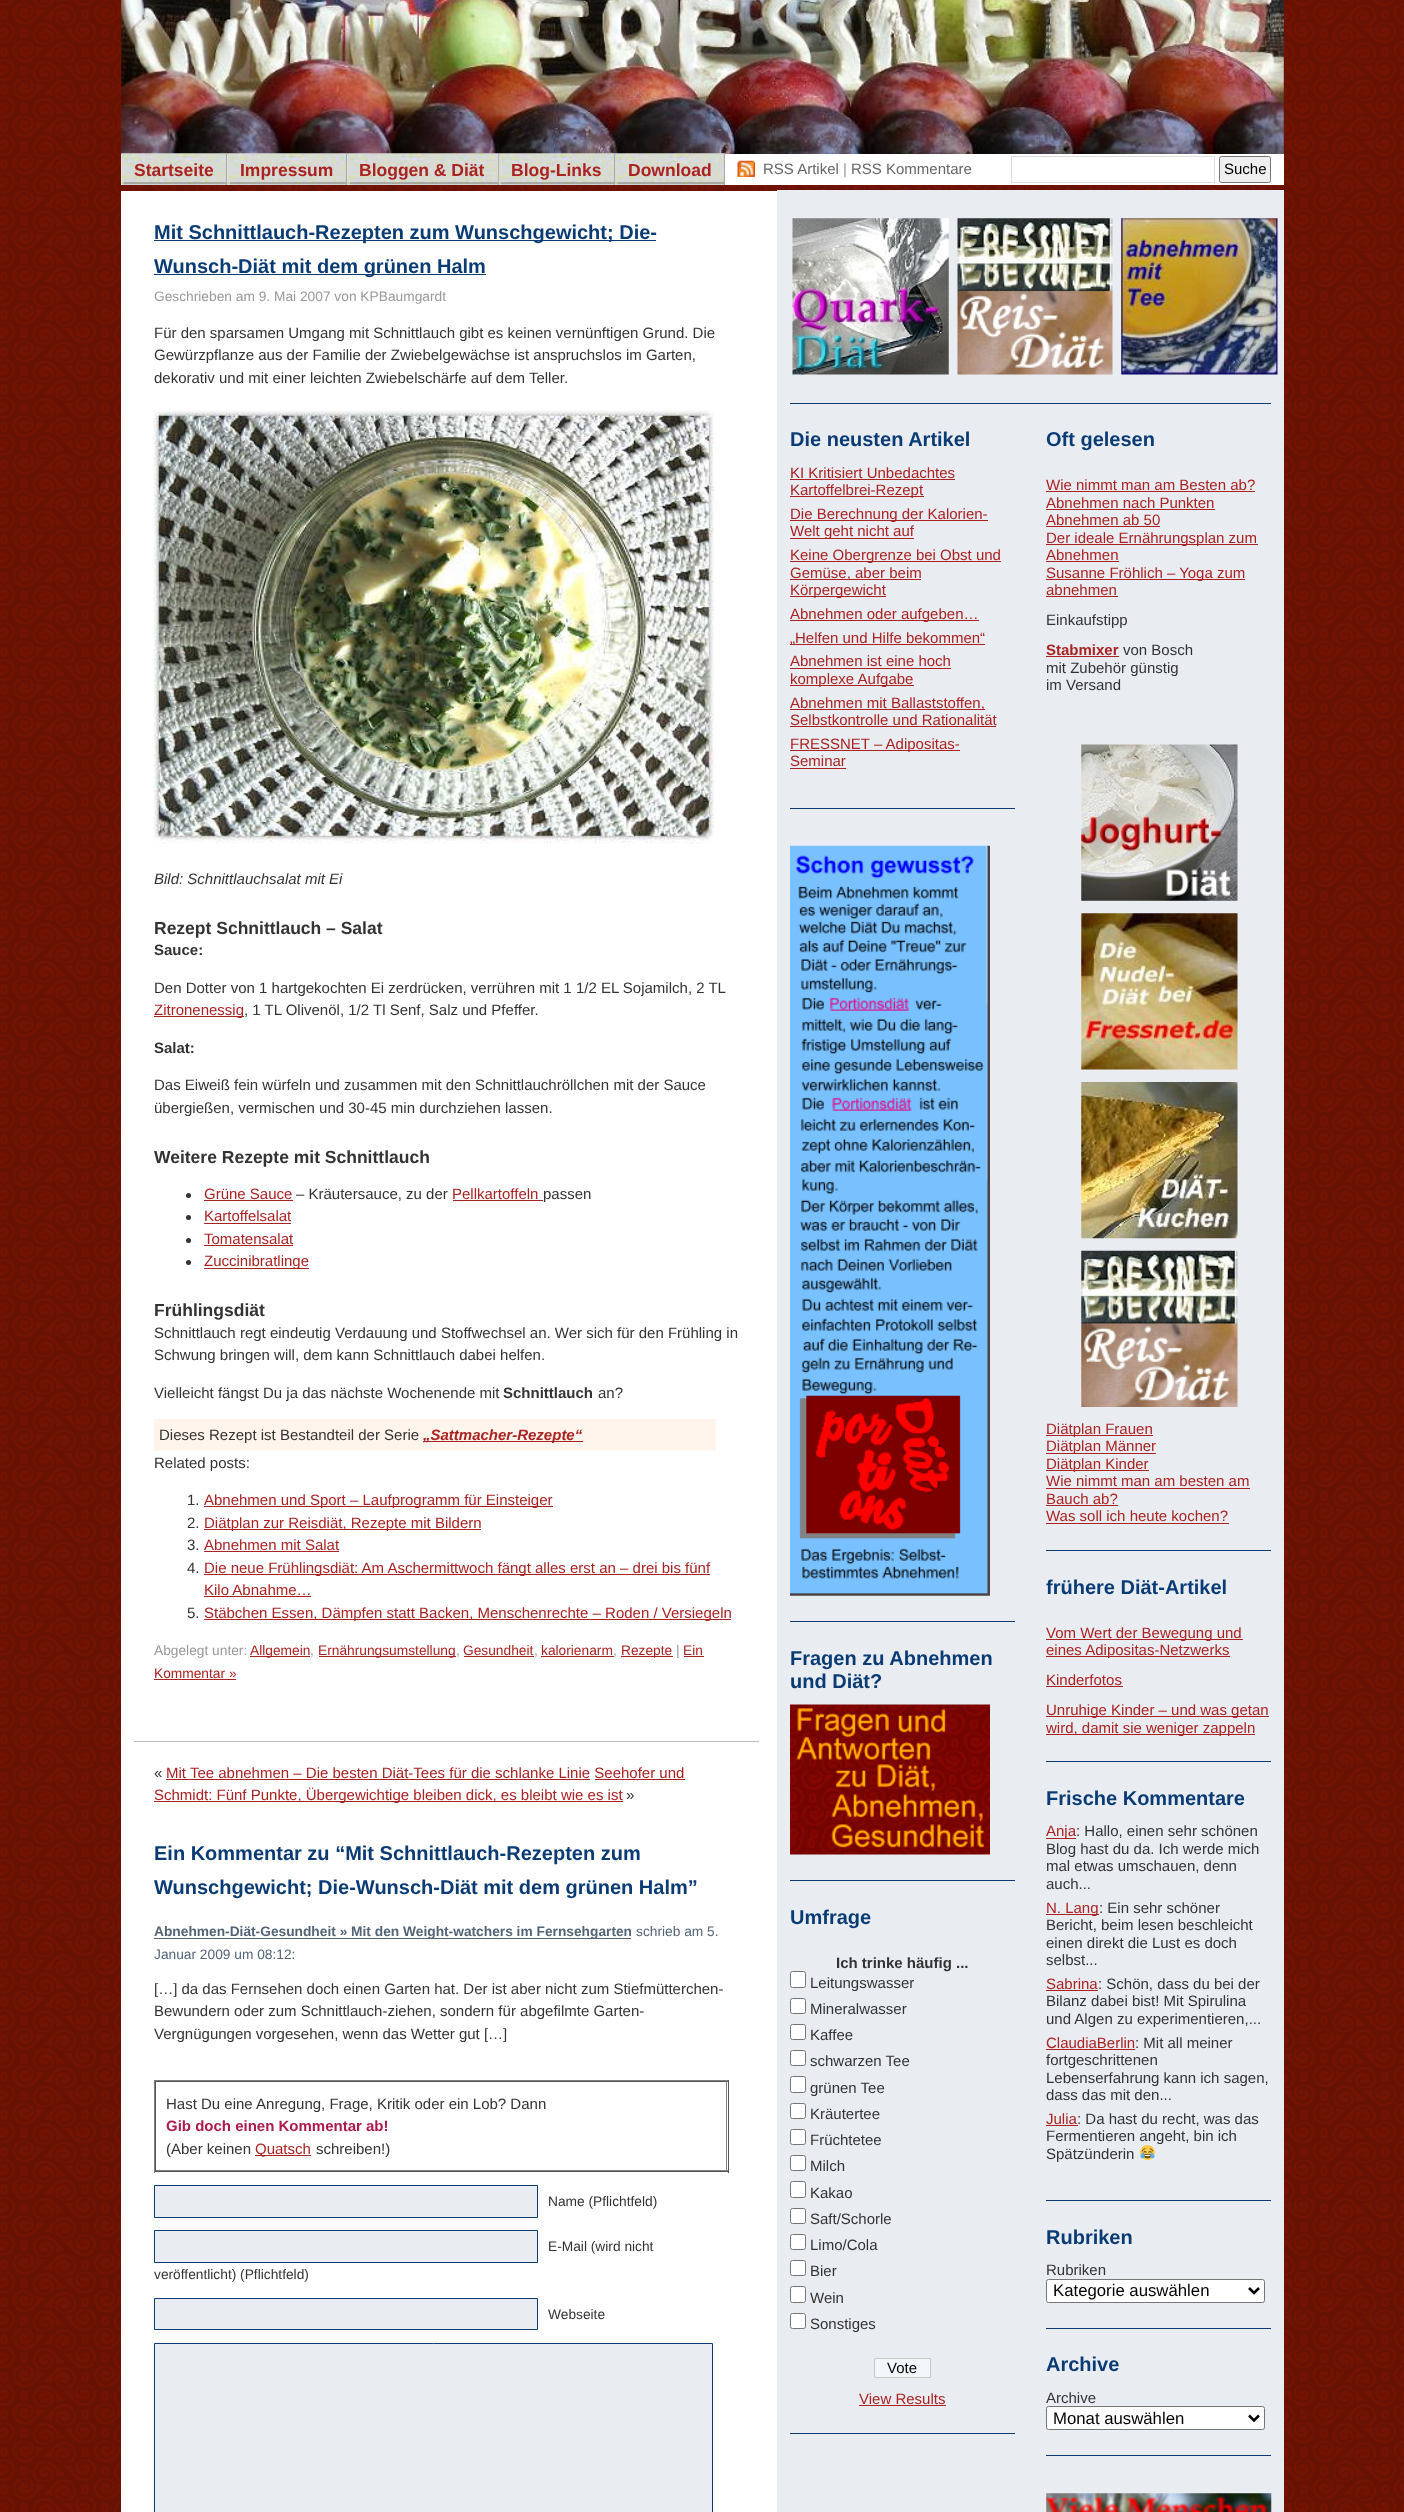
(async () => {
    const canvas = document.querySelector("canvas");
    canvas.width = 1404;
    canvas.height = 2512;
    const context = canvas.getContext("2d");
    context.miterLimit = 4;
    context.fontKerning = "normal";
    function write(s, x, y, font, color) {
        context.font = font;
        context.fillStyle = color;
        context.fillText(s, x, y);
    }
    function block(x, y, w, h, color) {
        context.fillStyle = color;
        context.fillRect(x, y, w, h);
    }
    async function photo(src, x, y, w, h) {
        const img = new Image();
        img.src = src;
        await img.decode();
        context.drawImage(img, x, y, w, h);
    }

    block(0, 0, 1404, 2512, "rgb(255, 255, 255)");
    await photo("media/1.png", 0, 0, 1404, 2512);
    await photo("media/2.png", 121, 0, 1163, 154);
    block(121, 154, 1163, 31, "rgb(255, 255, 255)");
    await photo("media/3.png", 121, 153, 107, 32);
    block(226, 154, 1, 31, "rgb(167, 167, 167)");
    write("Startseite", 134, 176, "bold 17.5px Liberation Sans", "rgb(170, 34, 34)");
    await photo("media/4.png", 227, 153, 121, 32);
    block(346, 154, 1, 31, "rgb(167, 167, 167)");
    write("Impressum", 240, 176, "bold 17.5px Liberation Sans", "rgb(170, 34, 34)");
    await photo("media/5.png", 347, 153, 152, 32);
    block(498, 154, 1, 31, "rgb(167, 167, 167)");
    write("Bloggen & Diät", 359, 176, "bold 17.5px Liberation Sans", "rgb(170, 34, 34)");
    await photo("media/6.png", 498, 153, 117, 32);
    block(614, 154, 1, 31, "rgb(167, 167, 167)");
    write("Blog-Links", 511, 176, "bold 17.5px Liberation Sans", "rgb(170, 34, 34)");
    await photo("media/7.png", 615, 153, 110, 32);
    block(724, 154, 1, 31, "rgb(167, 167, 167)");
    write("Download", 628, 176, "bold 17.5px Liberation Sans", "rgb(170, 34, 34)");
    await photo("media/8.png", 737, 160, 18, 17);
    write("RSS Artikel", 763, 174, "15px Liberation Sans", "rgb(102, 102, 102)");
    write("|", 843, 174, "15px Liberation Sans", "rgb(153, 153, 153)");
    write("RSS Kommentare", 851, 174, "15px Liberation Sans", "rgb(102, 102, 102)");
    context.strokeStyle = "rgb(221, 221, 221)";
    context.strokeRect(1011.5, 156.5, 203, 26);
    context.fillStyle = "rgb(239, 239, 239)";
    context.beginPath();
    context.roundRect(1219.5, 156.5, 51, 26, 2);
    context.fill();
    context.strokeStyle = "rgb(118, 118, 118)";
    context.stroke();
    write("Suche", 1224, 174, "15px Liberation Sans", "rgb(0, 0, 0)");
    block(121, 191, 656, 2321, "rgb(255, 255, 255)");
    block(777, 190, 507, 2322, "rgb(233, 237, 242)");
    block(154, 240, 502, 1, "rgb(10, 59, 116)");
    write("Mit Schnittlauch-Rezepten zum Wunschgewicht; Die-", 154, 239, "bold 20px Liberation Sans", "rgb(10, 59, 116)");
    block(154, 274, 332, 1, "rgb(10, 59, 116)");
    write("Wunsch-Diät mit dem grünen Halm", 154, 273, "bold 20px Liberation Sans", "rgb(10, 59, 116)");
    write("Geschrieben am 9. Mai 2007 von KPBaumgardt", 154, 301, "13.75px Liberation Sans", "rgb(153, 153, 153)");
    write("Für den sparsamen Umgang mit Schnittlauch gibt es keinen vernünftigen Grund. Die", 154, 338, "15px Liberation Sans", "rgb(51, 51, 51)");
    write("Gewürzpflanze aus der Familie der Zwiebelgewächse ist anspruchslos im Garten,", 154, 360, "15px Liberation Sans", "rgb(51, 51, 51)");
    write("dekorativ und mit einer leichten Zwiebelschärfe auf dem Teller.", 154, 383, "15px Liberation Sans", "rgb(51, 51, 51)");
    await photo("media/9.png", 153, 410, 562, 434);
    write("Bild: Schnittlauchsalat mit Ei", 154, 884, "italic 15px Liberation Sans", "rgb(51, 51, 51)");
    write("Rezept Schnittlauch – Salat", 154, 934, "bold 17.5px Liberation Sans", "rgb(51, 51, 51)");
    write("Sauce:", 154, 955, "bold 15px Liberation Sans", "rgb(51, 51, 51)");
    write("Den Dotter von 1 hartgekochten Ei zerdrücken, verrühren mit 1 1/2 EL Sojamilch, 2 TL", 154, 993, "15px Liberation Sans", "rgb(51, 51, 51)");
    block(154, 1016, 90, 1, "rgb(170, 34, 34)");
    write("Zitronenessig", 154, 1015, "15px Liberation Sans", "rgb(170, 34, 34)");
    write(", 1 TL Olivenöl, 1/2 Tl Senf, Salz und Pfeffer.", 244, 1015, "15px Liberation Sans", "rgb(51, 51, 51)");
    write("Salat:", 154, 1053, "bold 15px Liberation Sans", "rgb(51, 51, 51)");
    write("Das Eiweiß fein würfeln und zusammen mit den Schnittlauchröllchen mit der Sauce", 154, 1090, "15px Liberation Sans", "rgb(51, 51, 51)");
    write("übergießen, vermischen und 30-45 min durchziehen lassen.", 154, 1113, "15px Liberation Sans", "rgb(51, 51, 51)");
    write("Weitere Rezepte mit Schnittlauch", 154, 1163, "bold 17.5px Liberation Sans", "rgb(51, 51, 51)");
    context.beginPath();
    context.arc(188.5, 1195.5, 2.5, 0, Math.PI * 2);
    context.fill();
    write("Grüne Sauce", 204, 1199, "15px Liberation Sans", "rgb(170, 34, 34)");
    block(204, 1200, 89, 1, "rgb(170, 34, 34)");
    write("– Kräutersauce, zu der", 296, 1199, "15px Liberation Sans", "rgb(51, 51, 51)");
    write("Pellkartoffeln", 452, 1199, "15px Liberation Sans", "rgb(170, 34, 34)");
    block(453, 1200, 90, 1, "rgb(170, 34, 34)");
    write("passen", 543, 1199, "15px Liberation Sans", "rgb(51, 51, 51)");
    context.beginPath();
    context.arc(188.5, 1217.5, 2.5, 0, Math.PI * 2);
    context.fill();
    write("Kartoffelsalat", 204, 1221, "15px Liberation Sans", "rgb(170, 34, 34)");
    block(204, 1223, 87, 1, "rgb(170, 34, 34)");
    context.fillStyle = "rgb(51, 51, 51)";
    context.beginPath();
    context.arc(188.5, 1240.5, 2.5, 0, Math.PI * 2);
    context.fill();
    write("Tomatensalat", 204, 1244, "15px Liberation Sans", "rgb(170, 34, 34)");
    block(204, 1245, 89, 1, "rgb(170, 34, 34)");
    context.fillStyle = "rgb(51, 51, 51)";
    context.beginPath();
    context.arc(188.5, 1262.5, 2.5, 0, Math.PI * 2);
    context.fill();
    block(204, 1268, 105, 1, "rgb(170, 34, 34)");
    write("Zuccinibratlinge", 204, 1266, "15px Liberation Sans", "rgb(170, 34, 34)");
    write("Frühlingsdiät", 154, 1316, "bold 17.5px Liberation Sans", "rgb(51, 51, 51)");
    write("Schnittlauch regt eindeutig Verdauung und Stoffwechsel an. Wer sich für den Frühling in", 154, 1338, "15px Liberation Sans", "rgb(51, 51, 51)");
    write("Schwung bringen will, dem kann Schnittlauch dabei helfen.", 154, 1360, "15px Liberation Sans", "rgb(51, 51, 51)");
    write("Vielleicht fängst Du ja das nächste Wochenende mit", 154, 1398, "15px Liberation Sans", "rgb(51, 51, 51)");
    write("Schnittlauch", 503, 1398, "bold 15px Liberation Sans", "rgb(51, 51, 51)");
    write("an?", 598, 1398, "15px Liberation Sans", "rgb(51, 51, 51)");
    block(154, 1419, 562, 32, "rgb(255, 245, 236)");
    write("Dieses Rezept ist Bestandteil der Serie", 159, 1440, "15px Liberation Sans", "rgb(51, 51, 51)");
    block(423, 1441, 160, 1, "rgb(170, 34, 34)");
    write("„Sattmacher-Rezepte“", 423, 1440, "italic bold 15px Liberation Sans", "rgb(170, 34, 34)");
    write("Related posts:", 154, 1468, "15px Liberation Sans", "rgb(51, 51, 51)");
    write("1.", 187, 1505, "15px Liberation Sans", "rgb(51, 51, 51)");
    block(204, 1506, 349, 1, "rgb(170, 34, 34)");
    write("Abnehmen und Sport – Laufprogramm für Einsteiger", 204, 1505, "15px Liberation Sans", "rgb(170, 34, 34)");
    write("2.", 187, 1528, "15px Liberation Sans", "rgb(51, 51, 51)");
    block(204, 1529, 277, 1, "rgb(170, 34, 34)");
    write("Diätplan zur Reisdiät, Rezepte mit Bildern", 204, 1528, "15px Liberation Sans", "rgb(170, 34, 34)");
    write("3.", 187, 1550, "15px Liberation Sans", "rgb(51, 51, 51)");
    write("Abnehmen mit Salat", 204, 1550, "15px Liberation Sans", "rgb(170, 34, 34)");
    block(204, 1551, 135, 1, "rgb(170, 34, 34)");
    write("4.", 187, 1573, "15px Liberation Sans", "rgb(51, 51, 51)");
    block(204, 1574, 506, 1, "rgb(170, 34, 34)");
    write("Die neue Frühlingsdiät: Am Aschermittwoch fängt alles erst an – drei bis fünf", 204, 1573, "15px Liberation Sans", "rgb(170, 34, 34)");
    write("Kilo Abnahme…", 204, 1595, "15px Liberation Sans", "rgb(170, 34, 34)");
    block(204, 1596, 107, 1, "rgb(170, 34, 34)");
    write("5.", 187, 1618, "15px Liberation Sans", "rgb(51, 51, 51)");
    block(204, 1619, 527, 1, "rgb(170, 34, 34)");
    write("Stäbchen Essen, Dämpfen statt Backen, Menschenrechte – Roden / Versiegeln", 204, 1618, "15px Liberation Sans", "rgb(170, 34, 34)");
    write("Abgelegt unter:", 154, 1655, "13.75px Liberation Sans", "rgb(153, 153, 153)");
    block(250, 1656, 60, 1, "rgb(170, 34, 34)");
    write("Allgemein", 250, 1655, "13.75px Liberation Sans", "rgb(170, 34, 34)");
    write(",", 310, 1655, "13.75px Liberation Sans", "rgb(153, 153, 153)");
    block(319, 1656, 137, 1, "rgb(170, 34, 34)");
    write("Ernährungsumstellung", 318, 1655, "13.75px Liberation Sans", "rgb(170, 34, 34)");
    write(",", 456, 1655, "13.75px Liberation Sans", "rgb(153, 153, 153)");
    write("Gesundheit", 463, 1655, "13.75px Liberation Sans", "rgb(170, 34, 34)");
    block(464, 1656, 70, 1, "rgb(170, 34, 34)");
    write(",", 534, 1655, "13.75px Liberation Sans", "rgb(153, 153, 153)");
    write("kalorienarm", 541, 1655, "13.75px Liberation Sans", "rgb(170, 34, 34)");
    block(541, 1656, 73, 1, "rgb(170, 34, 34)");
    write(",", 613, 1655, "13.75px Liberation Sans", "rgb(153, 153, 153)");
    block(621, 1656, 52, 1, "rgb(170, 34, 34)");
    write("Rezepte", 621, 1655, "13.75px Liberation Sans", "rgb(170, 34, 34)");
    write("|", 676, 1655, "13.75px Liberation Sans", "rgb(153, 153, 153)");
    write("Ein", 683, 1655, "13.75px Liberation Sans", "rgb(170, 34, 34)");
    block(684, 1656, 20, 1, "rgb(170, 34, 34)");
    write("Kommentar »", 154, 1678, "13.75px Liberation Sans", "rgb(170, 34, 34)");
    block(154, 1679, 82, 1, "rgb(170, 34, 34)");
    block(134, 1741, 625, 1, "rgb(189, 189, 189)");
    write("«", 154, 1778, "15px Liberation Sans", "rgb(51, 51, 51)");
    write("Mit Tee abnehmen – Die besten Diät-Tees für die schlanke Linie Seehofer und", 166, 1778, "15px Liberation Sans", "rgb(170, 34, 34)");
    block(166, 1779, 424, 1, "rgb(170, 34, 34)");
    block(154, 1801, 469, 1, "rgb(170, 34, 34)");
    write("Schmidt: Fünf Punkte, Übergewichtige bleiben dick, es bleibt wie es ist", 154, 1800, "15px Liberation Sans", "rgb(170, 34, 34)");
    block(595, 1779, 90, 1, "rgb(170, 34, 34)");
    write("»", 626, 1800, "15px Liberation Sans", "rgb(51, 51, 51)");
    write("Ein Kommentar zu “Mit Schnittlauch-Rezepten zum", 154, 1860, "bold 20px Liberation Sans", "rgb(10, 59, 116)");
    write("Wunschgewicht; Die-Wunsch-Diät mit dem grünen Halm”", 154, 1894, "bold 20px Liberation Sans", "rgb(10, 59, 116)");
    block(154, 1938, 477, 1, "rgb(84, 100, 119)");
    write("Abnehmen-Diät-Gesundheit » Mit den Weight-watchers im Fernsehgarten", 154, 1936, "bold 13.75px Liberation Sans", "rgb(84, 100, 119)");
    write("schrieb am 5.", 636, 1936, "13.75px Liberation Sans", "rgb(84, 100, 119)");
    write("Januar 2009 um 08:12:", 154, 1959, "13.75px Liberation Sans", "rgb(84, 100, 119)");
    write("[…] da das Fernsehen doch einen Garten hat. Der ist aber nicht zum Stiefmütterchen-", 154, 1994, "15px Liberation Sans", "rgb(51, 51, 51)");
    write("Bewundern oder zum Schnittlauch-ziehen, sondern für abgefilmte Garten-", 154, 2016, "15px Liberation Sans", "rgb(51, 51, 51)");
    write("Vergnügungen vorgesehen, wenn das Wetter gut […]", 154, 2039, "15px Liberation Sans", "rgb(51, 51, 51)");
    block(154, 2080, 575, 1, "rgb(128, 128, 128)");
    block(728, 2080, 1, 93, "rgb(85, 85, 85)");
    block(154, 2171, 575, 1, "rgb(85, 85, 85)");
    block(154, 2080, 1, 93, "rgb(128, 128, 128)");
    block(155, 2081, 573, 1, "rgb(85, 85, 85)");
    block(726, 2081, 1, 90, "rgb(128, 128, 128)");
    block(155, 2170, 573, 1, "rgb(128, 128, 128)");
    block(155, 2081, 1, 90, "rgb(85, 85, 85)");
    write("Hast Du eine Anregung, Frage, Kritik oder ein Lob? Dann", 166, 2109, "15px Liberation Sans", "rgb(51, 51, 51)");
    write("Gib doch einen Kommentar ab!", 166, 2131, "bold 15px Liberation Sans", "rgb(173, 24, 77)");
    write("(Aber keinen", 166, 2154, "15px Liberation Sans", "rgb(51, 51, 51)");
    block(255, 2155, 56, 1, "rgb(170, 34, 34)");
    write("Quatsch", 255, 2154, "15px Liberation Sans", "rgb(170, 34, 34)");
    write("schreiben!)", 316, 2154, "15px Liberation Sans", "rgb(51, 51, 51)");
    context.fillStyle = "rgb(233, 237, 242)";
    context.beginPath();
    context.rect(154.5, 2185.5, 383, 32);
    context.fill();
    context.strokeStyle = "rgb(10, 59, 116)";
    context.stroke();
    write("Name (Pflichtfeld)", 548, 2206, "13.75px Liberation Sans", "rgb(51, 51, 51)");
    context.fillStyle = "rgb(233, 237, 242)";
    context.beginPath();
    context.rect(154.5, 2230.5, 383, 32);
    context.fill();
    context.stroke();
    write("E-Mail (wird nicht", 548, 2251, "13.75px Liberation Sans", "rgb(51, 51, 51)");
    write("veröffentlicht) (Pflichtfeld)", 154, 2279, "13.75px Liberation Sans", "rgb(51, 51, 51)");
    context.fillStyle = "rgb(233, 237, 242)";
    context.beginPath();
    context.rect(154.5, 2298.5, 383, 31);
    context.fill();
    context.stroke();
    write("Webseite", 548, 2319, "13.75px Liberation Sans", "rgb(51, 51, 51)");
    context.fillStyle = "rgb(233, 237, 242)";
    context.beginPath();
    context.rect(154.5, 2343.5, 558, 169);
    context.fill();
    context.stroke();
    block(790, 403, 481, 1, "rgb(10, 59, 116)");
    await photo("media/10.png", 792, 218, 157, 157);
    await photo("media/11.png", 957, 218, 156, 157);
    await photo("media/12.png", 1121, 218, 157, 157);
    block(790, 808, 225, 1, "rgb(10, 59, 116)");
    write("Die neusten Artikel", 790, 446, "bold 20px Liberation Sans", "rgb(10, 59, 116)");
    write("KI Kritisiert Unbedachtes", 790, 478, "15px Liberation Sans", "rgb(170, 34, 34)");
    block(790, 479, 165, 1, "rgb(170, 34, 34)");
    block(790, 496, 134, 1, "rgb(170, 34, 34)");
    write("Kartoffelbrei-Rezept", 790, 495, "15px Liberation Sans", "rgb(170, 34, 34)");
    block(790, 520, 198, 1, "rgb(170, 34, 34)");
    write("Die Berechnung der Kalorien-", 790, 519, "15px Liberation Sans", "rgb(170, 34, 34)");
    block(790, 538, 124, 1, "rgb(170, 34, 34)");
    write("Welt geht nicht auf", 790, 536, "15px Liberation Sans", "rgb(170, 34, 34)");
    block(790, 561, 211, 1, "rgb(170, 34, 34)");
    write("Keine Obergrenze bei Obst und", 790, 560, "15px Liberation Sans", "rgb(170, 34, 34)");
    block(790, 579, 131, 1, "rgb(170, 34, 34)");
    write("Gemüse, aber beim", 790, 578, "15px Liberation Sans", "rgb(170, 34, 34)");
    block(790, 596, 96, 1, "rgb(170, 34, 34)");
    write("Körpergewicht", 790, 595, "15px Liberation Sans", "rgb(170, 34, 34)");
    block(790, 620, 189, 1, "rgb(170, 34, 34)");
    write("Abnehmen oder aufgeben…", 790, 619, "15px Liberation Sans", "rgb(170, 34, 34)");
    block(790, 644, 195, 1, "rgb(170, 34, 34)");
    write("„Helfen und Hilfe bekommen“", 790, 643, "15px Liberation Sans", "rgb(170, 34, 34)");
    write("Abnehmen ist eine hoch", 790, 666, "15px Liberation Sans", "rgb(170, 34, 34)");
    block(790, 668, 161, 1, "rgb(170, 34, 34)");
    block(790, 685, 124, 1, "rgb(170, 34, 34)");
    write("komplexe Aufgabe", 790, 684, "15px Liberation Sans", "rgb(170, 34, 34)");
    block(790, 709, 195, 1, "rgb(170, 34, 34)");
    write("Abnehmen mit Ballaststoffen,", 790, 708, "15px Liberation Sans", "rgb(170, 34, 34)");
    write("Selbstkontrolle und Rationalität", 790, 725, "15px Liberation Sans", "rgb(170, 34, 34)");
    block(790, 726, 206, 1, "rgb(170, 34, 34)");
    block(790, 750, 170, 1, "rgb(170, 34, 34)");
    write("FRESSNET – Adipositas-", 790, 749, "15px Liberation Sans", "rgb(170, 34, 34)");
    write("Seminar", 790, 766, "15px Liberation Sans", "rgb(170, 34, 34)");
    block(790, 768, 56, 1, "rgb(170, 34, 34)");
    block(790, 1621, 225, 1, "rgb(10, 59, 116)");
    await photo("media/13.png", 790, 845, 200, 751);
    block(790, 1880, 225, 1, "rgb(10, 59, 116)");
    write("Fragen zu Abnehmen", 790, 1665, "bold 20px Liberation Sans", "rgb(10, 59, 116)");
    write("und Diät?", 790, 1688, "bold 20px Liberation Sans", "rgb(10, 59, 116)");
    await photo("media/14.png", 790, 1704, 200, 151);
    block(790, 2433, 225, 1, "rgb(10, 59, 116)");
    write("Umfrage", 790, 1924, "bold 20px Liberation Sans", "rgb(10, 59, 116)");
    write("Ich trinke häufig ...", 836, 1968, "bold 15px Liberation Sans", "rgb(51, 51, 51)");
    context.fillStyle = "rgb(255, 255, 255)";
    context.beginPath();
    context.roundRect(790.5, 1971.5, 15, 16, 2);
    context.fill();
    context.strokeStyle = "rgb(118, 118, 118)";
    context.stroke();
    write("Leitungswasser", 810, 1988, "15px Liberation Sans", "rgb(51, 51, 51)");
    context.fillStyle = "rgb(255, 255, 255)";
    context.beginPath();
    context.roundRect(790.5, 1998.5, 15, 15, 2);
    context.fill();
    context.stroke();
    write("Mineralwasser", 810, 2014, "15px Liberation Sans", "rgb(51, 51, 51)");
    context.fillStyle = "rgb(255, 255, 255)";
    context.beginPath();
    context.roundRect(790.5, 2024.5, 15, 15, 2);
    context.fill();
    context.stroke();
    write("Kaffee", 810, 2040, "15px Liberation Sans", "rgb(51, 51, 51)");
    context.fillStyle = "rgb(255, 255, 255)";
    context.beginPath();
    context.roundRect(790.5, 2050.5, 15, 15, 2);
    context.fill();
    context.stroke();
    write("schwarzen Tee", 810, 2066, "15px Liberation Sans", "rgb(51, 51, 51)");
    context.fillStyle = "rgb(255, 255, 255)";
    context.beginPath();
    context.roundRect(790.5, 2076.5, 15, 16, 2);
    context.fill();
    context.stroke();
    write("grünen Tee", 810, 2093, "15px Liberation Sans", "rgb(51, 51, 51)");
    context.fillStyle = "rgb(255, 255, 255)";
    context.beginPath();
    context.roundRect(790.5, 2103.5, 15, 15, 2);
    context.fill();
    context.stroke();
    write("Kräutertee", 810, 2119, "15px Liberation Sans", "rgb(51, 51, 51)");
    context.fillStyle = "rgb(255, 255, 255)";
    context.beginPath();
    context.roundRect(790.5, 2129.5, 15, 15, 2);
    context.fill();
    context.stroke();
    write("Früchtetee", 810, 2145, "15px Liberation Sans", "rgb(51, 51, 51)");
    context.fillStyle = "rgb(255, 255, 255)";
    context.beginPath();
    context.roundRect(790.5, 2155.5, 15, 15, 2);
    context.fill();
    context.stroke();
    write("Milch", 810, 2171, "15px Liberation Sans", "rgb(51, 51, 51)");
    context.fillStyle = "rgb(255, 255, 255)";
    context.beginPath();
    context.roundRect(790.5, 2181.5, 15, 16, 2);
    context.fill();
    context.stroke();
    write("Kakao", 810, 2198, "15px Liberation Sans", "rgb(51, 51, 51)");
    context.fillStyle = "rgb(255, 255, 255)";
    context.beginPath();
    context.roundRect(790.5, 2208.5, 15, 15, 2);
    context.fill();
    context.stroke();
    write("Saft/Schorle", 810, 2224, "15px Liberation Sans", "rgb(51, 51, 51)");
    context.fillStyle = "rgb(255, 255, 255)";
    context.beginPath();
    context.roundRect(790.5, 2234.5, 15, 15, 2);
    context.fill();
    context.stroke();
    write("Limo/Cola", 810, 2250, "15px Liberation Sans", "rgb(51, 51, 51)");
    context.fillStyle = "rgb(255, 255, 255)";
    context.beginPath();
    context.roundRect(790.5, 2260.5, 15, 15, 2);
    context.fill();
    context.stroke();
    write("Bier", 810, 2276, "15px Liberation Sans", "rgb(51, 51, 51)");
    context.fillStyle = "rgb(255, 255, 255)";
    context.beginPath();
    context.roundRect(790.5, 2286.5, 15, 16, 2);
    context.fill();
    context.stroke();
    write("Wein", 810, 2303, "15px Liberation Sans", "rgb(51, 51, 51)");
    context.fillStyle = "rgb(255, 255, 255)";
    context.beginPath();
    context.roundRect(790.5, 2313.5, 15, 15, 2);
    context.fill();
    context.stroke();
    write("Sonstiges", 810, 2329, "15px Liberation Sans", "rgb(51, 51, 51)");
    context.fillStyle = "rgb(243, 246, 248)";
    context.beginPath();
    context.rect(874.5, 2358.5, 56, 19);
    context.fill();
    context.strokeStyle = "rgb(200, 200, 200)";
    context.stroke();
    write("Vote", 887, 2373, "15px Liberation Sans", "rgb(0, 0, 0)");
    write("View Results", 859, 2404, "15px Liberation Sans", "rgb(170, 34, 34)");
    block(859, 2405, 87, 1, "rgb(170, 34, 34)");
    block(1046, 1550, 225, 1, "rgb(10, 59, 116)");
    write("Oft gelesen", 1046, 446, "bold 20px Liberation Sans", "rgb(10, 59, 116)");
    write("Wie nimmt man am Besten ab?", 1046, 490, "15px Liberation Sans", "rgb(170, 34, 34)");
    block(1046, 491, 209, 1, "rgb(170, 34, 34)");
    write("Abnehmen nach Punkten", 1046, 508, "15px Liberation Sans", "rgb(170, 34, 34)");
    block(1046, 509, 169, 1, "rgb(170, 34, 34)");
    write("Abnehmen ab 50", 1046, 525, "15px Liberation Sans", "rgb(170, 34, 34)");
    block(1046, 526, 114, 1, "rgb(170, 34, 34)");
    block(1046, 544, 212, 1, "rgb(170, 34, 34)");
    write("Der ideale Ernährungsplan zum", 1046, 543, "15px Liberation Sans", "rgb(170, 34, 34)");
    write("Abnehmen", 1046, 560, "15px Liberation Sans", "rgb(170, 34, 34)");
    block(1046, 561, 73, 1, "rgb(170, 34, 34)");
    block(1046, 579, 199, 1, "rgb(170, 34, 34)");
    write("Susanne Fröhlich – Yoga zum", 1046, 578, "15px Liberation Sans", "rgb(170, 34, 34)");
    write("abnehmen", 1046, 595, "15px Liberation Sans", "rgb(170, 34, 34)");
    block(1046, 596, 72, 1, "rgb(170, 34, 34)");
    write("Einkaufstipp", 1046, 625, "15px Liberation Sans", "rgb(51, 51, 51)");
    write("Stabmixer", 1046, 655, "bold 15px Liberation Sans", "rgb(170, 34, 34)");
    block(1046, 656, 73, 1, "rgb(170, 34, 34)");
    write("von Bosch", 1123, 655, "15px Liberation Sans", "rgb(51, 51, 51)");
    write("mit Zubehör günstig", 1046, 673, "15px Liberation Sans", "rgb(51, 51, 51)");
    write("im Versand", 1046, 690, "15px Liberation Sans", "rgb(51, 51, 51)");
    await photo("media/15.png", 1081, 744, 157, 157);
    await photo("media/16.png", 1081, 913, 157, 157);
    await photo("media/17.png", 1081, 1082, 157, 157);
    await photo("media/18.png", 1081, 1250, 157, 157);
    block(1046, 1435, 107, 1, "rgb(170, 34, 34)");
    write("Diätplan Frauen", 1046, 1434, "15px Liberation Sans", "rgb(170, 34, 34)");
    block(1046, 1453, 110, 1, "rgb(170, 34, 34)");
    write("Diätplan Männer", 1046, 1451, "15px Liberation Sans", "rgb(170, 34, 34)");
    block(1046, 1470, 103, 1, "rgb(170, 34, 34)");
    write("Diätplan Kinder", 1046, 1469, "15px Liberation Sans", "rgb(170, 34, 34)");
    write("Wie nimmt man am besten am", 1046, 1486, "15px Liberation Sans", "rgb(170, 34, 34)");
    block(1046, 1488, 204, 1, "rgb(170, 34, 34)");
    write("Bauch ab?", 1046, 1504, "15px Liberation Sans", "rgb(170, 34, 34)");
    block(1046, 1505, 72, 1, "rgb(170, 34, 34)");
    write("Was soll ich heute kochen?", 1046, 1521, "15px Liberation Sans", "rgb(170, 34, 34)");
    block(1046, 1523, 183, 1, "rgb(170, 34, 34)");
    block(1046, 1761, 225, 1, "rgb(10, 59, 116)");
    write("frühere Diät-Artikel", 1046, 1594, "bold 20px Liberation Sans", "rgb(10, 59, 116)");
    block(1046, 1639, 197, 1, "rgb(170, 34, 34)");
    write("Vom Wert der Bewegung und", 1046, 1638, "15px Liberation Sans", "rgb(170, 34, 34)");
    block(1046, 1656, 184, 1, "rgb(170, 34, 34)");
    write("eines Adipositas-Netzwerks", 1046, 1655, "15px Liberation Sans", "rgb(170, 34, 34)");
    write("Kinderfotos", 1046, 1685, "15px Liberation Sans", "rgb(170, 34, 34)");
    block(1046, 1686, 77, 1, "rgb(170, 34, 34)");
    block(1046, 1716, 223, 1, "rgb(170, 34, 34)");
    write("Unruhige Kinder – und was getan", 1046, 1715, "15px Liberation Sans", "rgb(170, 34, 34)");
    block(1046, 1734, 209, 1, "rgb(170, 34, 34)");
    write("wird, damit sie weniger zappeln", 1046, 1733, "15px Liberation Sans", "rgb(170, 34, 34)");
    block(1046, 2200, 225, 1, "rgb(10, 59, 116)");
    write("Frische Kommentare", 1046, 1805, "bold 20px Liberation Sans", "rgb(10, 59, 116)");
    block(1046, 1838, 30, 1, "rgb(170, 34, 34)");
    write("Anja", 1046, 1836, "15px Liberation Sans", "rgb(170, 34, 34)");
    write(": Hallo, einen sehr schönen", 1076, 1836, "15px Liberation Sans", "rgb(51, 51, 51)");
    write("Blog hast du da. Ich werde mich", 1046, 1854, "15px Liberation Sans", "rgb(51, 51, 51)");
    write("mal etwas umschauen, denn", 1046, 1871, "15px Liberation Sans", "rgb(51, 51, 51)");
    write("auch...", 1046, 1889, "15px Liberation Sans", "rgb(51, 51, 51)");
    block(1046, 1914, 53, 1, "rgb(170, 34, 34)");
    write("N. Lang", 1046, 1913, "15px Liberation Sans", "rgb(170, 34, 34)");
    write(": Ein sehr schöner", 1099, 1913, "15px Liberation Sans", "rgb(51, 51, 51)");
    write("Bericht, beim lesen beschleicht", 1046, 1930, "15px Liberation Sans", "rgb(51, 51, 51)");
    write("einen direkt die Lust es doch", 1046, 1948, "15px Liberation Sans", "rgb(51, 51, 51)");
    write("selbst...", 1046, 1965, "15px Liberation Sans", "rgb(51, 51, 51)");
    write("Sabrina", 1046, 1989, "15px Liberation Sans", "rgb(170, 34, 34)");
    block(1046, 1990, 52, 1, "rgb(170, 34, 34)");
    write(": Schön, dass du bei der", 1098, 1989, "15px Liberation Sans", "rgb(51, 51, 51)");
    write("Bilanz dabei bist! Mit Spirulina", 1046, 2006, "15px Liberation Sans", "rgb(51, 51, 51)");
    write("und Algen zu experimentieren,...", 1046, 2024, "15px Liberation Sans", "rgb(51, 51, 51)");
    write("ClaudiaBerlin", 1046, 2048, "15px Liberation Sans", "rgb(170, 34, 34)");
    block(1046, 2049, 89, 1, "rgb(170, 34, 34)");
    write(": Mit all meiner", 1135, 2048, "15px Liberation Sans", "rgb(51, 51, 51)");
    write("fortgeschrittenen", 1046, 2065, "15px Liberation Sans", "rgb(51, 51, 51)");
    write("Lebenserfahrung kann ich sagen,", 1046, 2083, "15px Liberation Sans", "rgb(51, 51, 51)");
    write("dass das mit den...", 1046, 2100, "15px Liberation Sans", "rgb(51, 51, 51)");
    write("Julia", 1046, 2124, "15px Liberation Sans", "rgb(170, 34, 34)");
    block(1046, 2125, 32, 1, "rgb(170, 34, 34)");
    write(": Da hast du recht, was das", 1077, 2124, "15px Liberation Sans", "rgb(51, 51, 51)");
    write("Fermentieren angeht, bin ich", 1046, 2141, "15px Liberation Sans", "rgb(51, 51, 51)");
    write("Spätzünderin", 1046, 2159, "15px Liberation Sans", "rgb(51, 51, 51)");
    await photo("media/19.png", 1140, 2145, 15, 15);
    block(1046, 2328, 225, 1, "rgb(10, 59, 116)");
    write("Rubriken", 1046, 2244, "bold 20px Liberation Sans", "rgb(10, 59, 116)");
    write("Rubriken", 1046, 2275, "15px Liberation Sans", "rgb(51, 51, 51)");
    context.fillStyle = "rgb(255, 255, 255)";
    context.beginPath();
    context.roundRect(1046.5, 2279.5, 218, 23, 2);
    context.fill();
    context.strokeStyle = "rgb(118, 118, 118)";
    context.stroke();
    context.beginPath();
    context.moveTo(1249, 2288);
    context.lineTo(1254, 2293);
    context.lineTo(1259, 2288);
    context.strokeStyle = "rgb(0, 0, 0)";
    context.lineWidth = 2.5;
    context.stroke();
    write("Kategorie auswählen", 1053, 2296, "16.75px Liberation Sans", "rgb(0, 0, 0)");
    block(1046, 2455, 225, 1, "rgb(10, 59, 116)");
    write("Archive", 1046, 2371, "bold 20px Liberation Sans", "rgb(10, 59, 116)");
    write("Archive", 1046, 2403, "15px Liberation Sans", "rgb(51, 51, 51)");
    context.fillStyle = "rgb(255, 255, 255)";
    context.beginPath();
    context.roundRect(1046.5, 2406.5, 218, 23, 2);
    context.fill();
    context.strokeStyle = "rgb(118, 118, 118)";
    context.lineWidth = 1;
    context.stroke();
    context.beginPath();
    context.moveTo(1249, 2415.5);
    context.lineTo(1254, 2420.5);
    context.lineTo(1259, 2415.5);
    context.strokeStyle = "rgb(0, 0, 0)";
    context.lineWidth = 2.5;
    context.stroke();
    write("Monat auswählen", 1053, 2424, "16.75px Liberation Sans", "rgb(0, 0, 0)");
    await photo("media/20.png", 1046, 2493, 226, 19);
})();
